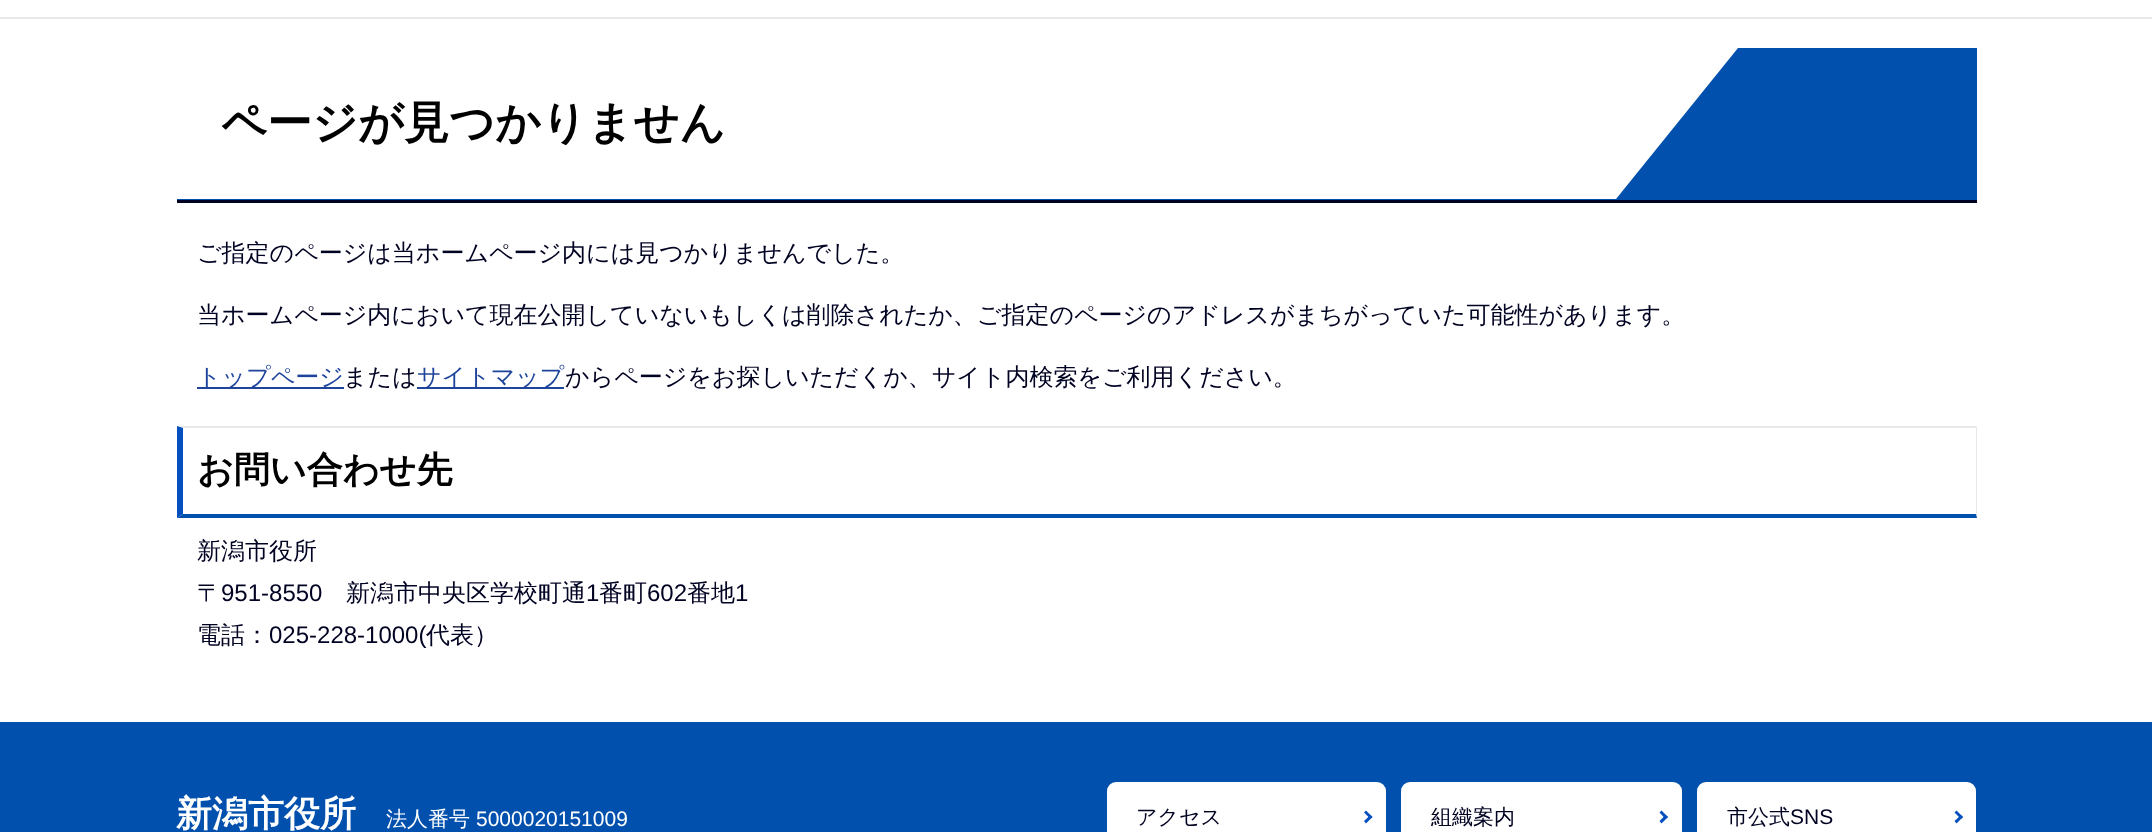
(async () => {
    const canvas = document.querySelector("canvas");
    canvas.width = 2152;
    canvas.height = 832;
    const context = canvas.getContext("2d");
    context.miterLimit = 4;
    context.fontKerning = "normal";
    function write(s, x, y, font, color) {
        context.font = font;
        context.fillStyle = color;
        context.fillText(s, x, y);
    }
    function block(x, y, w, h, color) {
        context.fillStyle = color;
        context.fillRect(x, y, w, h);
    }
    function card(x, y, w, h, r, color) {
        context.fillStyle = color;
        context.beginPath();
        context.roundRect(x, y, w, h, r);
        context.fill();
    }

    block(0, 0, 2152, 832, "rgb(255, 255, 255)");
    block(0, 17, 2152, 2, "rgb(232, 232, 232)");
    block(177, 200, 1800, 3, "rgb(0, 2, 34)");
    block(177, 48, 1800, 152, "rgb(2, 80, 173)");
    context.save();
    context.beginPath();
    context.rect(177, 48, 1800, 152);
    context.clip();
    context.fillStyle = "rgb(255, 255, 255)";
    context.beginPath();
    context.moveTo(-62, 48);
    context.lineTo(1738, 48);
    context.lineTo(1616, 199);
    context.lineTo(-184, 199);
    context.closePath();
    context.fill();
    context.restore();
    write("ページが見つかりません", 221, 138, "bold 45px WenQuanYi Zen Hei", "rgb(0, 0, 0)");
    write("ご指定のページは当ホームページ内には見つかりませんでした。", 197, 261, "500 24px WenQuanYi Zen Hei", "rgb(0, 2, 34)");
    write("当ホームページ内において現在公開していないもしくは削除されたか、ご指定のページのアドレスがまちがっていた可能性があります。", 197, 323, "500 24px WenQuanYi Zen Hei", "rgb(0, 2, 34)");
    block(197, 387, 147, 2, "rgb(30, 68, 156)");
    write("トップページ", 197, 385, "500 24px WenQuanYi Zen Hei", "rgb(30, 68, 156)");
    write("または", 343, 385, "500 24px WenQuanYi Zen Hei", "rgb(0, 2, 34)");
    block(417, 387, 147, 2, "rgb(30, 68, 156)");
    write("サイトマップ", 417, 385, "500 24px WenQuanYi Zen Hei", "rgb(30, 68, 156)");
    write("からページをお探しいただくか、サイト内検索をご利用ください。", 565, 385, "500 24px WenQuanYi Zen Hei", "rgb(0, 2, 34)");
    context.fillStyle = "rgb(232, 232, 232)";
    context.beginPath();
    context.moveTo(177, 426);
    context.lineTo(1977, 426);
    context.lineTo(1976, 428);
    context.lineTo(183, 428);
    context.closePath();
    context.fill();
    context.beginPath();
    context.moveTo(1977, 426);
    context.lineTo(1977, 518);
    context.lineTo(1976, 514);
    context.lineTo(1976, 428);
    context.closePath();
    context.fill();
    context.fillStyle = "rgb(2, 80, 173)";
    context.beginPath();
    context.moveTo(1977, 518);
    context.lineTo(177, 518);
    context.lineTo(183, 514);
    context.lineTo(1976, 514);
    context.closePath();
    context.fill();
    context.fillStyle = "rgb(5, 80, 191)";
    context.beginPath();
    context.moveTo(177, 518);
    context.lineTo(177, 426);
    context.lineTo(183, 428);
    context.lineTo(183, 514);
    context.closePath();
    context.fill();
    write("お問い合わせ先", 197, 482, "bold 36px WenQuanYi Zen Hei", "rgb(0, 0, 0)");
    write("新潟市役所", 197, 559, "500 24px WenQuanYi Zen Hei", "rgb(0, 2, 34)");
    write("〒", 197, 601, "500 24px WenQuanYi Zen Hei", "rgb(0, 2, 34)");
    write("951-8550", 221, 601, "24px Liberation Sans", "rgb(0, 2, 34)");
    write("新潟市中央区学校町通", 346, 601, "500 24px WenQuanYi Zen Hei", "rgb(0, 2, 34)");
    write("1", 586, 601, "24px Liberation Sans", "rgb(0, 2, 34)");
    write("番町", 599, 601, "500 24px WenQuanYi Zen Hei", "rgb(0, 2, 34)");
    write("602", 647, 601, "24px Liberation Sans", "rgb(0, 2, 34)");
    write("番地", 687, 601, "500 24px WenQuanYi Zen Hei", "rgb(0, 2, 34)");
    write("1", 735, 601, "24px Liberation Sans", "rgb(0, 2, 34)");
    write("電話：", 197, 643, "500 24px WenQuanYi Zen Hei", "rgb(0, 2, 34)");
    write("025-228-1000(", 269, 643, "24px Liberation Sans", "rgb(0, 2, 34)");
    write("代表）", 426, 643, "500 24px WenQuanYi Zen Hei", "rgb(0, 2, 34)");
    block(0, 722, 2152, 110, "rgb(2, 80, 173)");
    write("新潟市役所", 176, 826, "bold 36px WenQuanYi Zen Hei", "rgb(255, 255, 255)");
    write("法人番号", 386, 826, "500 21px WenQuanYi Zen Hei", "rgb(255, 255, 255)");
    write("5000020151009", 476, 826, "21px Liberation Sans", "rgb(255, 255, 255)");
    card(1107, 782, 279, 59, 9, "rgb(255, 255, 255)");
    write("アクセス", 1136, 824, "500 21px WenQuanYi Zen Hei", "rgb(0, 2, 34)");
    context.fillStyle = "rgb(5, 80, 191)";
    context.beginPath();
    context.moveTo(1366, 810.5);
    context.lineTo(1372.5, 817);
    context.lineTo(1370.5, 819);
    context.lineTo(1364, 812.5);
    context.closePath();
    context.fill();
    context.beginPath();
    context.moveTo(1370.5, 815);
    context.lineTo(1372.5, 817);
    context.lineTo(1366, 823.5);
    context.lineTo(1364, 821);
    context.closePath();
    context.fill();
    card(1401, 782, 281, 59, 9, "rgb(255, 255, 255)");
    write("組織案内", 1431, 824, "500 21px WenQuanYi Zen Hei", "rgb(0, 2, 34)");
    context.fillStyle = "rgb(5, 80, 191)";
    context.beginPath();
    context.moveTo(1661.5, 810.5);
    context.lineTo(1668, 817);
    context.lineTo(1665.5, 819);
    context.lineTo(1659.5, 812.5);
    context.closePath();
    context.fill();
    context.beginPath();
    context.moveTo(1665.5, 815);
    context.lineTo(1668, 817);
    context.lineTo(1661.5, 823.5);
    context.lineTo(1659.5, 821);
    context.closePath();
    context.fill();
    card(1697, 782, 279, 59, 9, "rgb(255, 255, 255)");
    write("市公式", 1727, 824, "500 21px WenQuanYi Zen Hei", "rgb(0, 2, 34)");
    write("SNS", 1790, 824, "21px Liberation Sans", "rgb(0, 2, 34)");
    context.fillStyle = "rgb(5, 80, 191)";
    context.beginPath();
    context.moveTo(1956.5, 810.5);
    context.lineTo(1963, 817);
    context.lineTo(1961, 819);
    context.lineTo(1954.5, 812.5);
    context.closePath();
    context.fill();
    context.beginPath();
    context.moveTo(1961, 815);
    context.lineTo(1963, 817);
    context.lineTo(1956.5, 823.5);
    context.lineTo(1954.5, 821);
    context.closePath();
    context.fill();
})();
